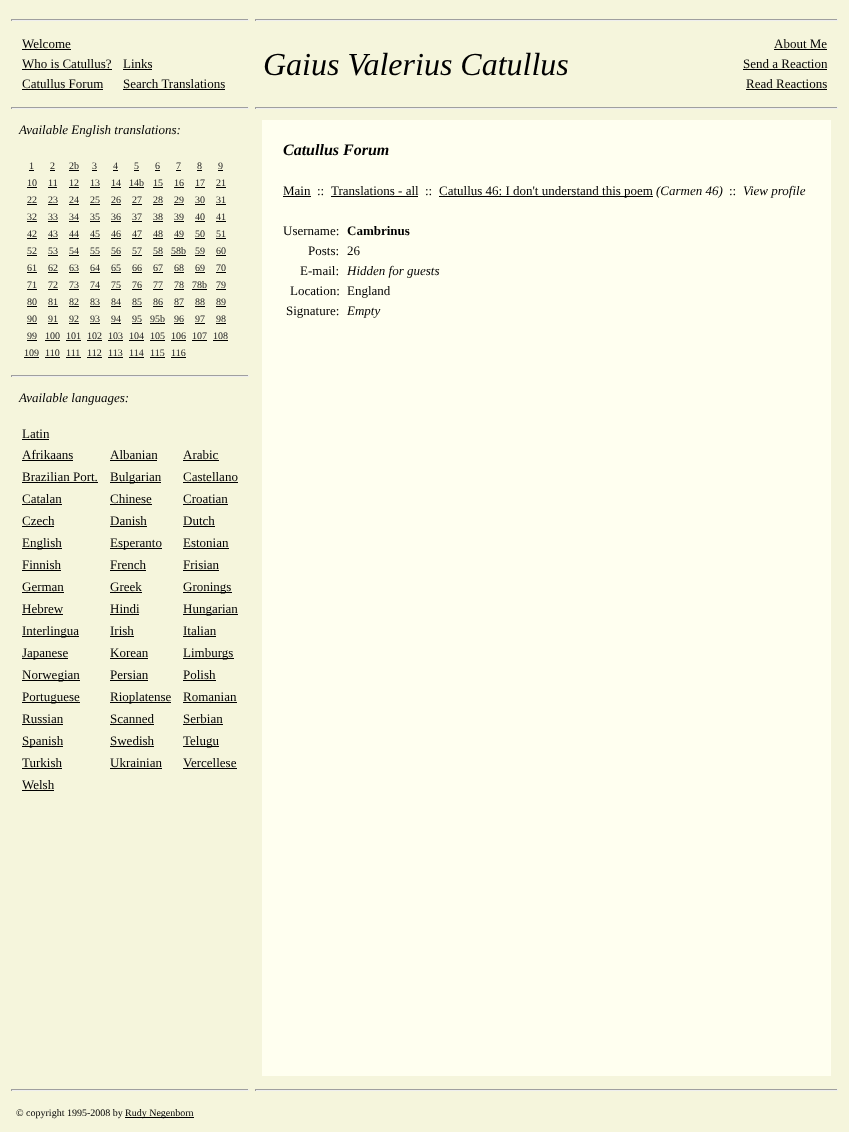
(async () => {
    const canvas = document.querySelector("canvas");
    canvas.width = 849;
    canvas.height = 1132;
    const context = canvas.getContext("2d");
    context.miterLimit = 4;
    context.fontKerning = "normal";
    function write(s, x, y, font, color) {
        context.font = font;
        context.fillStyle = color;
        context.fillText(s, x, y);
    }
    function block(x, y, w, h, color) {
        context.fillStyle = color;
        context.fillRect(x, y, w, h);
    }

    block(0, 0, 849, 1132, "rgb(245, 245, 220)");
    block(11, 19, 238, 1, "rgb(159, 159, 159)");
    block(248, 19, 1, 2, "rgb(238, 238, 238)");
    block(11, 20, 238, 1, "rgb(238, 238, 238)");
    block(11, 19, 1, 2, "rgb(159, 159, 159)");
    write("Welcome", 22, 48, "13px Liberation Serif", "rgb(0, 0, 0)");
    block(22, 49, 49, 1, "rgb(0, 0, 0)");
    write("Who is Catullus?", 22, 68, "13px Liberation Serif", "rgb(0, 0, 0)");
    block(22, 69, 90, 1, "rgb(0, 0, 0)");
    write("Links", 123, 68, "13px Liberation Serif", "rgb(0, 0, 0)");
    block(123, 69, 29, 1, "rgb(0, 0, 0)");
    write("Catullus Forum", 22, 88, "13px Liberation Serif", "rgb(0, 0, 0)");
    block(22, 89, 81, 1, "rgb(0, 0, 0)");
    write("Search Translations", 123, 88, "13px Liberation Serif", "rgb(0, 0, 0)");
    block(123, 89, 102, 1, "rgb(0, 0, 0)");
    block(11, 107, 238, 1, "rgb(159, 159, 159)");
    block(248, 107, 1, 2, "rgb(238, 238, 238)");
    block(11, 108, 238, 1, "rgb(238, 238, 238)");
    block(11, 107, 1, 2, "rgb(159, 159, 159)");
    write("Available English translations:", 19, 134, "italic 13px Liberation Serif", "rgb(0, 0, 0)");
    write("1", 29, 169, "10px Liberation Serif", "rgb(34, 34, 34)");
    block(29, 170, 5, 1, "rgb(0, 0, 0)");
    write("2", 50, 169, "10px Liberation Serif", "rgb(34, 34, 34)");
    block(50, 170, 5, 1, "rgb(0, 0, 0)");
    write("2b", 69, 169, "10px Liberation Serif", "rgb(34, 34, 34)");
    block(69, 170, 10, 1, "rgb(0, 0, 0)");
    write("3", 92, 169, "10px Liberation Serif", "rgb(34, 34, 34)");
    block(92, 170, 5, 1, "rgb(0, 0, 0)");
    write("4", 113, 169, "10px Liberation Serif", "rgb(34, 34, 34)");
    block(113, 170, 5, 1, "rgb(0, 0, 0)");
    write("5", 134, 169, "10px Liberation Serif", "rgb(34, 34, 34)");
    block(134, 170, 5, 1, "rgb(0, 0, 0)");
    write("6", 155, 169, "10px Liberation Serif", "rgb(34, 34, 34)");
    block(155, 170, 5, 1, "rgb(0, 0, 0)");
    write("7", 176, 169, "10px Liberation Serif", "rgb(34, 34, 34)");
    block(176, 170, 5, 1, "rgb(0, 0, 0)");
    write("8", 197, 169, "10px Liberation Serif", "rgb(34, 34, 34)");
    block(197, 170, 5, 1, "rgb(0, 0, 0)");
    write("9", 218, 169, "10px Liberation Serif", "rgb(34, 34, 34)");
    block(218, 170, 5, 1, "rgb(0, 0, 0)");
    write("10", 27, 186, "10px Liberation Serif", "rgb(34, 34, 34)");
    block(27, 187, 10, 1, "rgb(0, 0, 0)");
    write("11", 48, 186, "10px Liberation Serif", "rgb(34, 34, 34)");
    block(48, 187, 9, 1, "rgb(0, 0, 0)");
    write("12", 69, 186, "10px Liberation Serif", "rgb(34, 34, 34)");
    block(69, 187, 10, 1, "rgb(0, 0, 0)");
    write("13", 90, 186, "10px Liberation Serif", "rgb(34, 34, 34)");
    block(90, 187, 10, 1, "rgb(0, 0, 0)");
    write("14", 111, 186, "10px Liberation Serif", "rgb(34, 34, 34)");
    block(111, 187, 10, 1, "rgb(0, 0, 0)");
    write("14b", 129, 186, "10px Liberation Serif", "rgb(34, 34, 34)");
    block(129, 187, 15, 1, "rgb(0, 0, 0)");
    write("15", 153, 186, "10px Liberation Serif", "rgb(34, 34, 34)");
    block(153, 187, 10, 1, "rgb(0, 0, 0)");
    write("16", 174, 186, "10px Liberation Serif", "rgb(34, 34, 34)");
    block(174, 187, 10, 1, "rgb(0, 0, 0)");
    write("17", 195, 186, "10px Liberation Serif", "rgb(34, 34, 34)");
    block(195, 187, 10, 1, "rgb(0, 0, 0)");
    write("21", 216, 186, "10px Liberation Serif", "rgb(34, 34, 34)");
    block(216, 187, 10, 1, "rgb(0, 0, 0)");
    write("22", 27, 203, "10px Liberation Serif", "rgb(34, 34, 34)");
    block(27, 204, 10, 1, "rgb(0, 0, 0)");
    write("23", 48, 203, "10px Liberation Serif", "rgb(34, 34, 34)");
    block(48, 204, 10, 1, "rgb(0, 0, 0)");
    write("24", 69, 203, "10px Liberation Serif", "rgb(34, 34, 34)");
    block(69, 204, 10, 1, "rgb(0, 0, 0)");
    write("25", 90, 203, "10px Liberation Serif", "rgb(34, 34, 34)");
    block(90, 204, 10, 1, "rgb(0, 0, 0)");
    write("26", 111, 203, "10px Liberation Serif", "rgb(34, 34, 34)");
    block(111, 204, 10, 1, "rgb(0, 0, 0)");
    write("27", 132, 203, "10px Liberation Serif", "rgb(34, 34, 34)");
    block(132, 204, 10, 1, "rgb(0, 0, 0)");
    write("28", 153, 203, "10px Liberation Serif", "rgb(34, 34, 34)");
    block(153, 204, 10, 1, "rgb(0, 0, 0)");
    write("29", 174, 203, "10px Liberation Serif", "rgb(34, 34, 34)");
    block(174, 204, 10, 1, "rgb(0, 0, 0)");
    write("30", 195, 203, "10px Liberation Serif", "rgb(34, 34, 34)");
    block(195, 204, 10, 1, "rgb(0, 0, 0)");
    write("31", 216, 203, "10px Liberation Serif", "rgb(34, 34, 34)");
    block(216, 204, 10, 1, "rgb(0, 0, 0)");
    write("32", 27, 220, "10px Liberation Serif", "rgb(34, 34, 34)");
    block(27, 221, 10, 1, "rgb(0, 0, 0)");
    write("33", 48, 220, "10px Liberation Serif", "rgb(34, 34, 34)");
    block(48, 221, 10, 1, "rgb(0, 0, 0)");
    write("34", 69, 220, "10px Liberation Serif", "rgb(34, 34, 34)");
    block(69, 221, 10, 1, "rgb(0, 0, 0)");
    write("35", 90, 220, "10px Liberation Serif", "rgb(34, 34, 34)");
    block(90, 221, 10, 1, "rgb(0, 0, 0)");
    write("36", 111, 220, "10px Liberation Serif", "rgb(34, 34, 34)");
    block(111, 221, 10, 1, "rgb(0, 0, 0)");
    write("37", 132, 220, "10px Liberation Serif", "rgb(34, 34, 34)");
    block(132, 221, 10, 1, "rgb(0, 0, 0)");
    write("38", 153, 220, "10px Liberation Serif", "rgb(34, 34, 34)");
    block(153, 221, 10, 1, "rgb(0, 0, 0)");
    write("39", 174, 220, "10px Liberation Serif", "rgb(34, 34, 34)");
    block(174, 221, 10, 1, "rgb(0, 0, 0)");
    write("40", 195, 220, "10px Liberation Serif", "rgb(34, 34, 34)");
    block(195, 221, 10, 1, "rgb(0, 0, 0)");
    write("41", 216, 220, "10px Liberation Serif", "rgb(34, 34, 34)");
    block(216, 221, 10, 1, "rgb(0, 0, 0)");
    write("42", 27, 237, "10px Liberation Serif", "rgb(34, 34, 34)");
    block(27, 238, 10, 1, "rgb(0, 0, 0)");
    write("43", 48, 237, "10px Liberation Serif", "rgb(34, 34, 34)");
    block(48, 238, 10, 1, "rgb(0, 0, 0)");
    write("44", 69, 237, "10px Liberation Serif", "rgb(34, 34, 34)");
    block(69, 238, 10, 1, "rgb(0, 0, 0)");
    write("45", 90, 237, "10px Liberation Serif", "rgb(34, 34, 34)");
    block(90, 238, 10, 1, "rgb(0, 0, 0)");
    write("46", 111, 237, "10px Liberation Serif", "rgb(34, 34, 34)");
    block(111, 238, 10, 1, "rgb(0, 0, 0)");
    write("47", 132, 237, "10px Liberation Serif", "rgb(34, 34, 34)");
    block(132, 238, 10, 1, "rgb(0, 0, 0)");
    write("48", 153, 237, "10px Liberation Serif", "rgb(34, 34, 34)");
    block(153, 238, 10, 1, "rgb(0, 0, 0)");
    write("49", 174, 237, "10px Liberation Serif", "rgb(34, 34, 34)");
    block(174, 238, 10, 1, "rgb(0, 0, 0)");
    write("50", 195, 237, "10px Liberation Serif", "rgb(34, 34, 34)");
    block(195, 238, 10, 1, "rgb(0, 0, 0)");
    write("51", 216, 237, "10px Liberation Serif", "rgb(34, 34, 34)");
    block(216, 238, 10, 1, "rgb(0, 0, 0)");
    write("52", 27, 254, "10px Liberation Serif", "rgb(34, 34, 34)");
    block(27, 255, 10, 1, "rgb(0, 0, 0)");
    write("53", 48, 254, "10px Liberation Serif", "rgb(34, 34, 34)");
    block(48, 255, 10, 1, "rgb(0, 0, 0)");
    write("54", 69, 254, "10px Liberation Serif", "rgb(34, 34, 34)");
    block(69, 255, 10, 1, "rgb(0, 0, 0)");
    write("55", 90, 254, "10px Liberation Serif", "rgb(34, 34, 34)");
    block(90, 255, 10, 1, "rgb(0, 0, 0)");
    write("56", 111, 254, "10px Liberation Serif", "rgb(34, 34, 34)");
    block(111, 255, 10, 1, "rgb(0, 0, 0)");
    write("57", 132, 254, "10px Liberation Serif", "rgb(34, 34, 34)");
    block(132, 255, 10, 1, "rgb(0, 0, 0)");
    write("58", 153, 254, "10px Liberation Serif", "rgb(34, 34, 34)");
    block(153, 255, 10, 1, "rgb(0, 0, 0)");
    write("58b", 171, 254, "10px Liberation Serif", "rgb(34, 34, 34)");
    block(171, 255, 15, 1, "rgb(0, 0, 0)");
    write("59", 195, 254, "10px Liberation Serif", "rgb(34, 34, 34)");
    block(195, 255, 10, 1, "rgb(0, 0, 0)");
    write("60", 216, 254, "10px Liberation Serif", "rgb(34, 34, 34)");
    block(216, 255, 10, 1, "rgb(0, 0, 0)");
    write("61", 27, 271, "10px Liberation Serif", "rgb(34, 34, 34)");
    block(27, 272, 10, 1, "rgb(0, 0, 0)");
    write("62", 48, 271, "10px Liberation Serif", "rgb(34, 34, 34)");
    block(48, 272, 10, 1, "rgb(0, 0, 0)");
    write("63", 69, 271, "10px Liberation Serif", "rgb(34, 34, 34)");
    block(69, 272, 10, 1, "rgb(0, 0, 0)");
    write("64", 90, 271, "10px Liberation Serif", "rgb(34, 34, 34)");
    block(90, 272, 10, 1, "rgb(0, 0, 0)");
    write("65", 111, 271, "10px Liberation Serif", "rgb(34, 34, 34)");
    block(111, 272, 10, 1, "rgb(0, 0, 0)");
    write("66", 132, 271, "10px Liberation Serif", "rgb(34, 34, 34)");
    block(132, 272, 10, 1, "rgb(0, 0, 0)");
    write("67", 153, 271, "10px Liberation Serif", "rgb(34, 34, 34)");
    block(153, 272, 10, 1, "rgb(0, 0, 0)");
    write("68", 174, 271, "10px Liberation Serif", "rgb(34, 34, 34)");
    block(174, 272, 10, 1, "rgb(0, 0, 0)");
    write("69", 195, 271, "10px Liberation Serif", "rgb(34, 34, 34)");
    block(195, 272, 10, 1, "rgb(0, 0, 0)");
    write("70", 216, 271, "10px Liberation Serif", "rgb(34, 34, 34)");
    block(216, 272, 10, 1, "rgb(0, 0, 0)");
    write("71", 27, 288, "10px Liberation Serif", "rgb(34, 34, 34)");
    block(27, 289, 10, 1, "rgb(0, 0, 0)");
    write("72", 48, 288, "10px Liberation Serif", "rgb(34, 34, 34)");
    block(48, 289, 10, 1, "rgb(0, 0, 0)");
    write("73", 69, 288, "10px Liberation Serif", "rgb(34, 34, 34)");
    block(69, 289, 10, 1, "rgb(0, 0, 0)");
    write("74", 90, 288, "10px Liberation Serif", "rgb(34, 34, 34)");
    block(90, 289, 10, 1, "rgb(0, 0, 0)");
    write("75", 111, 288, "10px Liberation Serif", "rgb(34, 34, 34)");
    block(111, 289, 10, 1, "rgb(0, 0, 0)");
    write("76", 132, 288, "10px Liberation Serif", "rgb(34, 34, 34)");
    block(132, 289, 10, 1, "rgb(0, 0, 0)");
    write("77", 153, 288, "10px Liberation Serif", "rgb(34, 34, 34)");
    block(153, 289, 10, 1, "rgb(0, 0, 0)");
    write("78", 174, 288, "10px Liberation Serif", "rgb(34, 34, 34)");
    block(174, 289, 10, 1, "rgb(0, 0, 0)");
    write("78b", 192, 288, "10px Liberation Serif", "rgb(34, 34, 34)");
    block(192, 289, 15, 1, "rgb(0, 0, 0)");
    write("79", 216, 288, "10px Liberation Serif", "rgb(34, 34, 34)");
    block(216, 289, 10, 1, "rgb(0, 0, 0)");
    write("80", 27, 305, "10px Liberation Serif", "rgb(34, 34, 34)");
    block(27, 306, 10, 1, "rgb(0, 0, 0)");
    write("81", 48, 305, "10px Liberation Serif", "rgb(34, 34, 34)");
    block(48, 306, 10, 1, "rgb(0, 0, 0)");
    write("82", 69, 305, "10px Liberation Serif", "rgb(34, 34, 34)");
    block(69, 306, 10, 1, "rgb(0, 0, 0)");
    write("83", 90, 305, "10px Liberation Serif", "rgb(34, 34, 34)");
    block(90, 306, 10, 1, "rgb(0, 0, 0)");
    write("84", 111, 305, "10px Liberation Serif", "rgb(34, 34, 34)");
    block(111, 306, 10, 1, "rgb(0, 0, 0)");
    write("85", 132, 305, "10px Liberation Serif", "rgb(34, 34, 34)");
    block(132, 306, 10, 1, "rgb(0, 0, 0)");
    write("86", 153, 305, "10px Liberation Serif", "rgb(34, 34, 34)");
    block(153, 306, 10, 1, "rgb(0, 0, 0)");
    write("87", 174, 305, "10px Liberation Serif", "rgb(34, 34, 34)");
    block(174, 306, 10, 1, "rgb(0, 0, 0)");
    write("88", 195, 305, "10px Liberation Serif", "rgb(34, 34, 34)");
    block(195, 306, 10, 1, "rgb(0, 0, 0)");
    write("89", 216, 305, "10px Liberation Serif", "rgb(34, 34, 34)");
    block(216, 306, 10, 1, "rgb(0, 0, 0)");
    write("90", 27, 322, "10px Liberation Serif", "rgb(34, 34, 34)");
    block(27, 323, 10, 1, "rgb(0, 0, 0)");
    write("91", 48, 322, "10px Liberation Serif", "rgb(34, 34, 34)");
    block(48, 323, 10, 1, "rgb(0, 0, 0)");
    write("92", 69, 322, "10px Liberation Serif", "rgb(34, 34, 34)");
    block(69, 323, 10, 1, "rgb(0, 0, 0)");
    write("93", 90, 322, "10px Liberation Serif", "rgb(34, 34, 34)");
    block(90, 323, 10, 1, "rgb(0, 0, 0)");
    write("94", 111, 322, "10px Liberation Serif", "rgb(34, 34, 34)");
    block(111, 323, 10, 1, "rgb(0, 0, 0)");
    write("95", 132, 322, "10px Liberation Serif", "rgb(34, 34, 34)");
    block(132, 323, 10, 1, "rgb(0, 0, 0)");
    write("95b", 150, 322, "10px Liberation Serif", "rgb(34, 34, 34)");
    block(150, 323, 15, 1, "rgb(0, 0, 0)");
    write("96", 174, 322, "10px Liberation Serif", "rgb(34, 34, 34)");
    block(174, 323, 10, 1, "rgb(0, 0, 0)");
    write("97", 195, 322, "10px Liberation Serif", "rgb(34, 34, 34)");
    block(195, 323, 10, 1, "rgb(0, 0, 0)");
    write("98", 216, 322, "10px Liberation Serif", "rgb(34, 34, 34)");
    block(216, 323, 10, 1, "rgb(0, 0, 0)");
    write("99", 27, 339, "10px Liberation Serif", "rgb(34, 34, 34)");
    block(27, 340, 10, 1, "rgb(0, 0, 0)");
    write("100", 45, 339, "10px Liberation Serif", "rgb(34, 34, 34)");
    block(45, 340, 15, 1, "rgb(0, 0, 0)");
    write("101", 66, 339, "10px Liberation Serif", "rgb(34, 34, 34)");
    block(66, 340, 15, 1, "rgb(0, 0, 0)");
    write("102", 87, 339, "10px Liberation Serif", "rgb(34, 34, 34)");
    block(87, 340, 15, 1, "rgb(0, 0, 0)");
    write("103", 108, 339, "10px Liberation Serif", "rgb(34, 34, 34)");
    block(108, 340, 15, 1, "rgb(0, 0, 0)");
    write("104", 129, 339, "10px Liberation Serif", "rgb(34, 34, 34)");
    block(129, 340, 15, 1, "rgb(0, 0, 0)");
    write("105", 150, 339, "10px Liberation Serif", "rgb(34, 34, 34)");
    block(150, 340, 15, 1, "rgb(0, 0, 0)");
    write("106", 171, 339, "10px Liberation Serif", "rgb(34, 34, 34)");
    block(171, 340, 15, 1, "rgb(0, 0, 0)");
    write("107", 192, 339, "10px Liberation Serif", "rgb(34, 34, 34)");
    block(192, 340, 15, 1, "rgb(0, 0, 0)");
    write("108", 213, 339, "10px Liberation Serif", "rgb(34, 34, 34)");
    block(213, 340, 15, 1, "rgb(0, 0, 0)");
    write("109", 24, 356, "10px Liberation Serif", "rgb(34, 34, 34)");
    block(24, 357, 15, 1, "rgb(0, 0, 0)");
    write("110", 45, 356, "10px Liberation Serif", "rgb(34, 34, 34)");
    block(45, 357, 15, 1, "rgb(0, 0, 0)");
    write("111", 66, 356, "10px Liberation Serif", "rgb(34, 34, 34)");
    block(66, 357, 15, 1, "rgb(0, 0, 0)");
    write("112", 87, 356, "10px Liberation Serif", "rgb(34, 34, 34)");
    block(87, 357, 15, 1, "rgb(0, 0, 0)");
    write("113", 108, 356, "10px Liberation Serif", "rgb(34, 34, 34)");
    block(108, 357, 15, 1, "rgb(0, 0, 0)");
    write("114", 129, 356, "10px Liberation Serif", "rgb(34, 34, 34)");
    block(129, 357, 15, 1, "rgb(0, 0, 0)");
    write("115", 150, 356, "10px Liberation Serif", "rgb(34, 34, 34)");
    block(150, 357, 15, 1, "rgb(0, 0, 0)");
    write("116", 171, 356, "10px Liberation Serif", "rgb(34, 34, 34)");
    block(171, 357, 15, 1, "rgb(0, 0, 0)");
    block(11, 375, 238, 1, "rgb(159, 159, 159)");
    block(248, 375, 1, 2, "rgb(238, 238, 238)");
    block(11, 376, 238, 1, "rgb(238, 238, 238)");
    block(11, 375, 1, 2, "rgb(159, 159, 159)");
    write("Available languages:", 19, 402, "italic 13px Liberation Serif", "rgb(0, 0, 0)");
    write("Latin", 22, 438, "13px Liberation Serif", "rgb(0, 0, 0)");
    block(22, 439, 27, 1, "rgb(0, 0, 0)");
    write("Afrikaans", 22, 459, "13px Liberation Serif", "rgb(0, 0, 0)");
    block(22, 460, 51, 1, "rgb(0, 0, 0)");
    write("Albanian", 110, 459, "13px Liberation Serif", "rgb(0, 0, 0)");
    block(110, 460, 47, 1, "rgb(0, 0, 0)");
    write("Arabic", 183, 459, "13px Liberation Serif", "rgb(0, 0, 0)");
    block(183, 460, 36, 1, "rgb(0, 0, 0)");
    write("Brazilian Port.", 22, 481, "13px Liberation Serif", "rgb(0, 0, 0)");
    block(22, 482, 76, 1, "rgb(0, 0, 0)");
    block(110, 482, 51, 1, "rgb(0, 0, 0)");
    write("Bulgarian", 110, 481, "13px Liberation Serif", "rgb(0, 0, 0)");
    write("Castellano", 183, 481, "13px Liberation Serif", "rgb(0, 0, 0)");
    block(183, 482, 55, 1, "rgb(0, 0, 0)");
    write("Catalan", 22, 503, "13px Liberation Serif", "rgb(0, 0, 0)");
    block(22, 504, 40, 1, "rgb(0, 0, 0)");
    write("Chinese", 110, 503, "13px Liberation Serif", "rgb(0, 0, 0)");
    block(110, 504, 42, 1, "rgb(0, 0, 0)");
    write("Croatian", 183, 503, "13px Liberation Serif", "rgb(0, 0, 0)");
    block(183, 504, 45, 1, "rgb(0, 0, 0)");
    write("Czech", 22, 525, "13px Liberation Serif", "rgb(0, 0, 0)");
    block(22, 526, 32, 1, "rgb(0, 0, 0)");
    write("Danish", 110, 525, "13px Liberation Serif", "rgb(0, 0, 0)");
    block(110, 526, 37, 1, "rgb(0, 0, 0)");
    write("Dutch", 183, 525, "13px Liberation Serif", "rgb(0, 0, 0)");
    block(183, 526, 32, 1, "rgb(0, 0, 0)");
    block(22, 548, 40, 1, "rgb(0, 0, 0)");
    write("English", 22, 547, "13px Liberation Serif", "rgb(0, 0, 0)");
    block(110, 548, 52, 1, "rgb(0, 0, 0)");
    write("Esperanto", 110, 547, "13px Liberation Serif", "rgb(0, 0, 0)");
    write("Estonian", 183, 547, "13px Liberation Serif", "rgb(0, 0, 0)");
    block(183, 548, 46, 1, "rgb(0, 0, 0)");
    write("Finnish", 22, 569, "13px Liberation Serif", "rgb(0, 0, 0)");
    block(22, 570, 39, 1, "rgb(0, 0, 0)");
    write("French", 110, 569, "13px Liberation Serif", "rgb(0, 0, 0)");
    block(110, 570, 36, 1, "rgb(0, 0, 0)");
    write("Frisian", 183, 569, "13px Liberation Serif", "rgb(0, 0, 0)");
    block(183, 570, 36, 1, "rgb(0, 0, 0)");
    write("German", 22, 591, "13px Liberation Serif", "rgb(0, 0, 0)");
    block(22, 592, 42, 1, "rgb(0, 0, 0)");
    write("Greek", 110, 591, "13px Liberation Serif", "rgb(0, 0, 0)");
    block(110, 592, 32, 1, "rgb(0, 0, 0)");
    block(183, 592, 49, 1, "rgb(0, 0, 0)");
    write("Gronings", 183, 591, "13px Liberation Serif", "rgb(0, 0, 0)");
    write("Hebrew", 22, 613, "13px Liberation Serif", "rgb(0, 0, 0)");
    block(22, 614, 41, 1, "rgb(0, 0, 0)");
    write("Hindi", 110, 613, "13px Liberation Serif", "rgb(0, 0, 0)");
    block(110, 614, 29, 1, "rgb(0, 0, 0)");
    block(183, 614, 55, 1, "rgb(0, 0, 0)");
    write("Hungarian", 183, 613, "13px Liberation Serif", "rgb(0, 0, 0)");
    block(22, 636, 57, 1, "rgb(0, 0, 0)");
    write("Interlingua", 22, 635, "13px Liberation Serif", "rgb(0, 0, 0)");
    write("Irish", 110, 635, "13px Liberation Serif", "rgb(0, 0, 0)");
    block(110, 636, 24, 1, "rgb(0, 0, 0)");
    write("Italian", 183, 635, "13px Liberation Serif", "rgb(0, 0, 0)");
    block(183, 636, 33, 1, "rgb(0, 0, 0)");
    block(22, 658, 46, 1, "rgb(0, 0, 0)");
    write("Japanese", 22, 657, "13px Liberation Serif", "rgb(0, 0, 0)");
    write("Korean", 110, 657, "13px Liberation Serif", "rgb(0, 0, 0)");
    block(110, 658, 38, 1, "rgb(0, 0, 0)");
    block(183, 658, 51, 1, "rgb(0, 0, 0)");
    write("Limburgs", 183, 657, "13px Liberation Serif", "rgb(0, 0, 0)");
    block(22, 680, 58, 1, "rgb(0, 0, 0)");
    write("Norwegian", 22, 679, "13px Liberation Serif", "rgb(0, 0, 0)");
    write("Persian", 110, 679, "13px Liberation Serif", "rgb(0, 0, 0)");
    block(110, 680, 38, 1, "rgb(0, 0, 0)");
    write("Polish", 183, 679, "13px Liberation Serif", "rgb(0, 0, 0)");
    block(183, 680, 33, 1, "rgb(0, 0, 0)");
    block(22, 702, 58, 1, "rgb(0, 0, 0)");
    write("Portuguese", 22, 701, "13px Liberation Serif", "rgb(0, 0, 0)");
    block(110, 702, 61, 1, "rgb(0, 0, 0)");
    write("Rioplatense", 110, 701, "13px Liberation Serif", "rgb(0, 0, 0)");
    write("Romanian", 183, 701, "13px Liberation Serif", "rgb(0, 0, 0)");
    block(183, 702, 54, 1, "rgb(0, 0, 0)");
    write("Russian", 22, 723, "13px Liberation Serif", "rgb(0, 0, 0)");
    block(22, 724, 41, 1, "rgb(0, 0, 0)");
    write("Scanned", 110, 723, "13px Liberation Serif", "rgb(0, 0, 0)");
    block(110, 724, 44, 1, "rgb(0, 0, 0)");
    write("Serbian", 183, 723, "13px Liberation Serif", "rgb(0, 0, 0)");
    block(183, 724, 40, 1, "rgb(0, 0, 0)");
    block(22, 746, 41, 1, "rgb(0, 0, 0)");
    write("Spanish", 22, 745, "13px Liberation Serif", "rgb(0, 0, 0)");
    write("Swedish", 110, 745, "13px Liberation Serif", "rgb(0, 0, 0)");
    block(110, 746, 44, 1, "rgb(0, 0, 0)");
    block(183, 746, 36, 1, "rgb(0, 0, 0)");
    write("Telugu", 183, 745, "13px Liberation Serif", "rgb(0, 0, 0)");
    write("Turkish", 22, 767, "13px Liberation Serif", "rgb(0, 0, 0)");
    block(22, 768, 40, 1, "rgb(0, 0, 0)");
    write("Ukrainian", 110, 767, "13px Liberation Serif", "rgb(0, 0, 0)");
    block(110, 768, 52, 1, "rgb(0, 0, 0)");
    write("Vercellese", 183, 767, "13px Liberation Serif", "rgb(0, 0, 0)");
    block(183, 768, 54, 1, "rgb(0, 0, 0)");
    write("Welsh", 22, 789, "13px Liberation Serif", "rgb(0, 0, 0)");
    block(22, 790, 32, 1, "rgb(0, 0, 0)");
    block(255, 19, 583, 1, "rgb(159, 159, 159)");
    block(837, 19, 1, 2, "rgb(238, 238, 238)");
    block(255, 20, 583, 1, "rgb(238, 238, 238)");
    block(255, 19, 1, 2, "rgb(159, 159, 159)");
    write("Gaius Valerius Catullus", 263, 75, "italic 32px Liberation Serif", "rgb(0, 0, 0)");
    write("About Me", 774, 48, "13px Liberation Serif", "rgb(0, 0, 0)");
    block(774, 49, 53, 1, "rgb(0, 0, 0)");
    write("Send a Reaction", 743, 68, "13px Liberation Serif", "rgb(0, 0, 0)");
    block(743, 69, 84, 1, "rgb(0, 0, 0)");
    write("Read Reactions", 746, 88, "13px Liberation Serif", "rgb(0, 0, 0)");
    block(746, 89, 81, 1, "rgb(0, 0, 0)");
    block(255, 107, 583, 1, "rgb(159, 159, 159)");
    block(837, 107, 1, 2, "rgb(238, 238, 238)");
    block(255, 108, 583, 1, "rgb(238, 238, 238)");
    block(255, 107, 1, 2, "rgb(159, 159, 159)");
    block(262, 120, 569, 956, "rgb(255, 255, 240)");
    write("Catullus Forum", 283, 155, "italic bold 16px Liberation Serif", "rgb(0, 0, 0)");
    write("Main", 283, 195, "13px Liberation Serif", "rgb(0, 0, 0)");
    block(283, 196, 28, 1, "rgb(0, 0, 0)");
    write("::", 317, 195, "13px Liberation Serif", "rgb(0, 0, 0)");
    write("Translations - all", 331, 195, "13px Liberation Serif", "rgb(0, 0, 0)");
    block(331, 196, 87, 1, "rgb(0, 0, 0)");
    write("::", 425, 195, "13px Liberation Serif", "rgb(0, 0, 0)");
    block(439, 196, 214, 1, "rgb(0, 0, 0)");
    write("Catullus 46: I don't understand this poem", 439, 195, "13px Liberation Serif", "rgb(0, 0, 0)");
    write("(Carmen 46)", 656, 195, "italic 13px Liberation Serif", "rgb(0, 0, 0)");
    write("::", 729, 195, "13px Liberation Serif", "rgb(0, 0, 0)");
    write("View profile", 743, 195, "italic 13px Liberation Serif", "rgb(0, 0, 0)");
    write("Username:", 283, 235, "13px Liberation Serif", "rgb(0, 0, 0)");
    write("Cambrinus", 347, 235, "bold 13px Liberation Serif", "rgb(0, 0, 0)");
    write("Posts:", 308, 255, "13px Liberation Serif", "rgb(0, 0, 0)");
    write("26", 347, 255, "13px Liberation Serif", "rgb(0, 0, 0)");
    write("E-mail:", 300, 275, "13px Liberation Serif", "rgb(0, 0, 0)");
    write("Hidden for guests", 347, 275, "italic 13px Liberation Serif", "rgb(0, 0, 0)");
    write("Location:", 290, 295, "13px Liberation Serif", "rgb(0, 0, 0)");
    write("England", 347, 295, "13px Liberation Serif", "rgb(0, 0, 0)");
    write("Signature:", 286, 315, "13px Liberation Serif", "rgb(0, 0, 0)");
    write("Empty", 347, 315, "italic 13px Liberation Serif", "rgb(0, 0, 0)");
    block(11, 1089, 238, 1, "rgb(159, 159, 159)");
    block(248, 1089, 1, 2, "rgb(238, 238, 238)");
    block(11, 1090, 238, 1, "rgb(238, 238, 238)");
    block(11, 1089, 1, 2, "rgb(159, 159, 159)");
    block(255, 1089, 583, 1, "rgb(159, 159, 159)");
    block(837, 1089, 1, 2, "rgb(238, 238, 238)");
    block(255, 1090, 583, 1, "rgb(238, 238, 238)");
    block(255, 1089, 1, 2, "rgb(159, 159, 159)");
    write("© copyright 1995-2008 by", 16, 1116, "10px Liberation Serif", "rgb(0, 0, 0)");
    block(125, 1117, 69, 1, "rgb(0, 0, 0)");
    write("Rudy Negenborn", 125, 1116, "10px Liberation Serif", "rgb(0, 0, 0)");
})();
